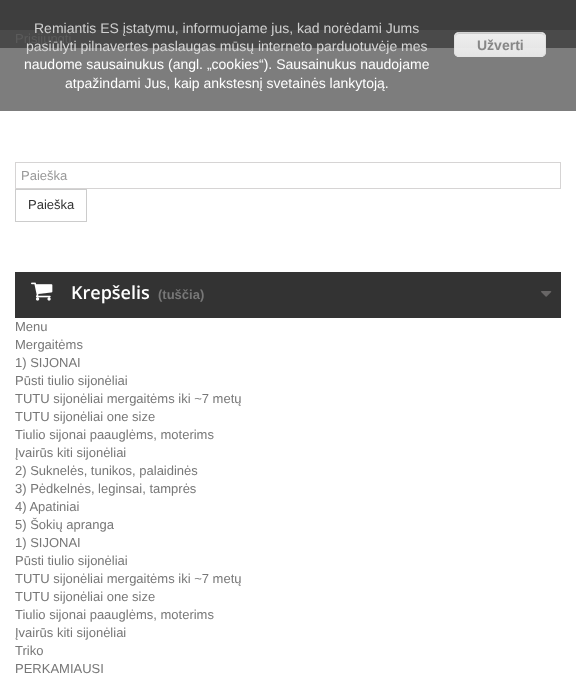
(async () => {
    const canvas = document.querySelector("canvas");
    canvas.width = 576;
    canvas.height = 679;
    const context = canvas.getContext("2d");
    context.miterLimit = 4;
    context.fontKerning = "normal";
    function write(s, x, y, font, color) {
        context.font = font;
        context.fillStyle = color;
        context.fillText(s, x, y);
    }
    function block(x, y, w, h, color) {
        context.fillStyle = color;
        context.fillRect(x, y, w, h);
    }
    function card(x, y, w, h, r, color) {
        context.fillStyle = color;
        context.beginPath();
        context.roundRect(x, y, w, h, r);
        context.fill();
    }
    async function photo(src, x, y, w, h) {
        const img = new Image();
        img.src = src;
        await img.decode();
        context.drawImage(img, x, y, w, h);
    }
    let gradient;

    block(0, 0, 576, 679, "rgb(255, 255, 255)");
    block(0, 48, 576, 63, "rgb(125, 125, 125)");
    block(0, 0, 576, 30, "rgb(62, 62, 62)");
    block(0, 30, 576, 18, "rgb(74, 74, 74)");
    write("Remiantis ES įstatymu, informuojame jus, kad norėdami Jums", 34, 33, "14px Liberation Sans", "rgb(208, 208, 208)");
    write("Prisijungti", 15, 43, "13px Liberation Sans", "rgb(91, 91, 91)");
    write("pasiūlyti pilnavertes paslaugas mūsų interneto parduotuvėje mes", 26, 51, "14px Liberation Sans", "rgb(215, 215, 215)");
    write("naudome sausainukus (angl. „cookies“). Sausainukus naudojame", 24, 69, "14px Liberation Sans", "rgb(255, 255, 255)");
    write("atpažindami Jus, kaip ankstesnį svetainės lankytoją.", 65, 88, "14px Liberation Sans", "rgb(255, 255, 255)");
    card(454, 32, 92, 25, 5, "rgba(249, 249, 249, 0.75)");
    context.save();
    context.beginPath();
    context.roundRect(454, 32, 92, 25, 5);
    context.clip();
    gradient = context.createLinearGradient(455, 10, 455, 33);
    gradient.addColorStop(0.05, "rgb(200, 200, 200)");
    gradient.addColorStop(1, "rgb(188, 188, 188)");
    context.fillStyle = gradient;
    context.fillRect(454, 32, 92, 1);
    gradient = context.createLinearGradient(455, 33, 455, 56);
    gradient.addColorStop(0.05, "rgba(249, 249, 249, 0.75)");
    gradient.addColorStop(1, "rgba(233, 233, 233, 0.75)");
    context.fillStyle = gradient;
    context.fillRect(454, 33, 92, 23);
    gradient = context.createLinearGradient(455, 56, 455, 79);
    gradient.addColorStop(0.05, "rgb(251, 251, 251)");
    gradient.addColorStop(1, "rgb(239, 239, 239)");
    context.fillStyle = gradient;
    context.fillRect(454, 56, 92, 1);
    context.restore();
    context.fillStyle = "rgb(204, 204, 204)";
    context.beginPath();
    context.moveTo(459, 34);
    context.lineTo(541, 34);
    context.bezierCurveTo(543, 34, 545, 36, 545, 38);
    context.bezierCurveTo(545, 30, 532, 33, 527, 33);
    context.lineTo(473, 33);
    context.bezierCurveTo(468, 33, 455, 30, 455, 38);
    context.bezierCurveTo(455, 36, 457, 34, 459, 34);
    context.closePath();
    context.fill();
    context.beginPath();
    context.roundRect(454.5, 32.5, 91, 24, 4.5);
    context.strokeStyle = "rgba(220, 220, 220, 0.75)";
    context.stroke();
    write("Užverti", 477, 50, "bold 14px Liberation Sans", "rgb(135, 135, 135)");
    context.strokeStyle = "rgb(214, 212, 212)";
    context.strokeRect(15.5, 162.5, 545, 26);
    write("Paieška", 21, 180, "13px Liberation Sans", "rgb(153, 153, 153)");
    context.strokeStyle = "rgb(204, 204, 204)";
    context.strokeRect(15.5, 189.5, 71, 32);
    write("Paieška", 28, 209, "13px Liberation Sans", "rgb(51, 51, 51)");
    block(15, 272, 546, 46, "rgb(51, 51, 51)");
    await photo("media/1.png", 31, 282, 22, 19);
    write("Krepšelis", 71, 299, "600 18px Open Sans", "rgb(255, 255, 255)");
    write("(tuščia)", 158, 299, "bold 13px Liberation Sans", "rgb(119, 119, 119)");
    await photo("media/2.png", 541, 291, 11, 6);
    write("Menu", 15, 331, "13px Liberation Sans", "rgb(119, 119, 119)");
    write("Mergaitėms", 15, 349, "13px Liberation Sans", "rgb(119, 119, 119)");
    write("1) SIJONAI", 15, 367, "13px Liberation Sans", "rgb(119, 119, 119)");
    write("Pūsti tiulio sijonėliai", 15, 385, "13px Liberation Sans", "rgb(119, 119, 119)");
    write("TUTU sijonėliai mergaitėms iki ~7 metų", 15, 403, "13px Liberation Sans", "rgb(119, 119, 119)");
    write("TUTU sijonėliai one size", 15, 421, "13px Liberation Sans", "rgb(119, 119, 119)");
    write("Tiulio sijonai paauglėms, moterims", 15, 439, "13px Liberation Sans", "rgb(119, 119, 119)");
    write("Įvairūs kiti sijonėliai", 15, 457, "13px Liberation Sans", "rgb(119, 119, 119)");
    write("2) Suknelės, tunikos, palaidinės", 15, 475, "13px Liberation Sans", "rgb(119, 119, 119)");
    write("3) Pėdkelnės, leginsai, tamprės", 15, 493, "13px Liberation Sans", "rgb(119, 119, 119)");
    write("4) Apatiniai", 15, 511, "13px Liberation Sans", "rgb(119, 119, 119)");
    write("5) Šokių apranga", 15, 529, "13px Liberation Sans", "rgb(119, 119, 119)");
    write("1) SIJONAI", 15, 547, "13px Liberation Sans", "rgb(119, 119, 119)");
    write("Pūsti tiulio sijonėliai", 15, 565, "13px Liberation Sans", "rgb(119, 119, 119)");
    write("TUTU sijonėliai mergaitėms iki ~7 metų", 15, 583, "13px Liberation Sans", "rgb(119, 119, 119)");
    write("TUTU sijonėliai one size", 15, 601, "13px Liberation Sans", "rgb(119, 119, 119)");
    write("Tiulio sijonai paauglėms, moterims", 15, 619, "13px Liberation Sans", "rgb(119, 119, 119)");
    write("Įvairūs kiti sijonėliai", 15, 637, "13px Liberation Sans", "rgb(119, 119, 119)");
    write("Triko", 15, 655, "13px Liberation Sans", "rgb(119, 119, 119)");
    write("PERKAMIAUSI", 15, 673, "13px Liberation Sans", "rgb(119, 119, 119)");
})();
